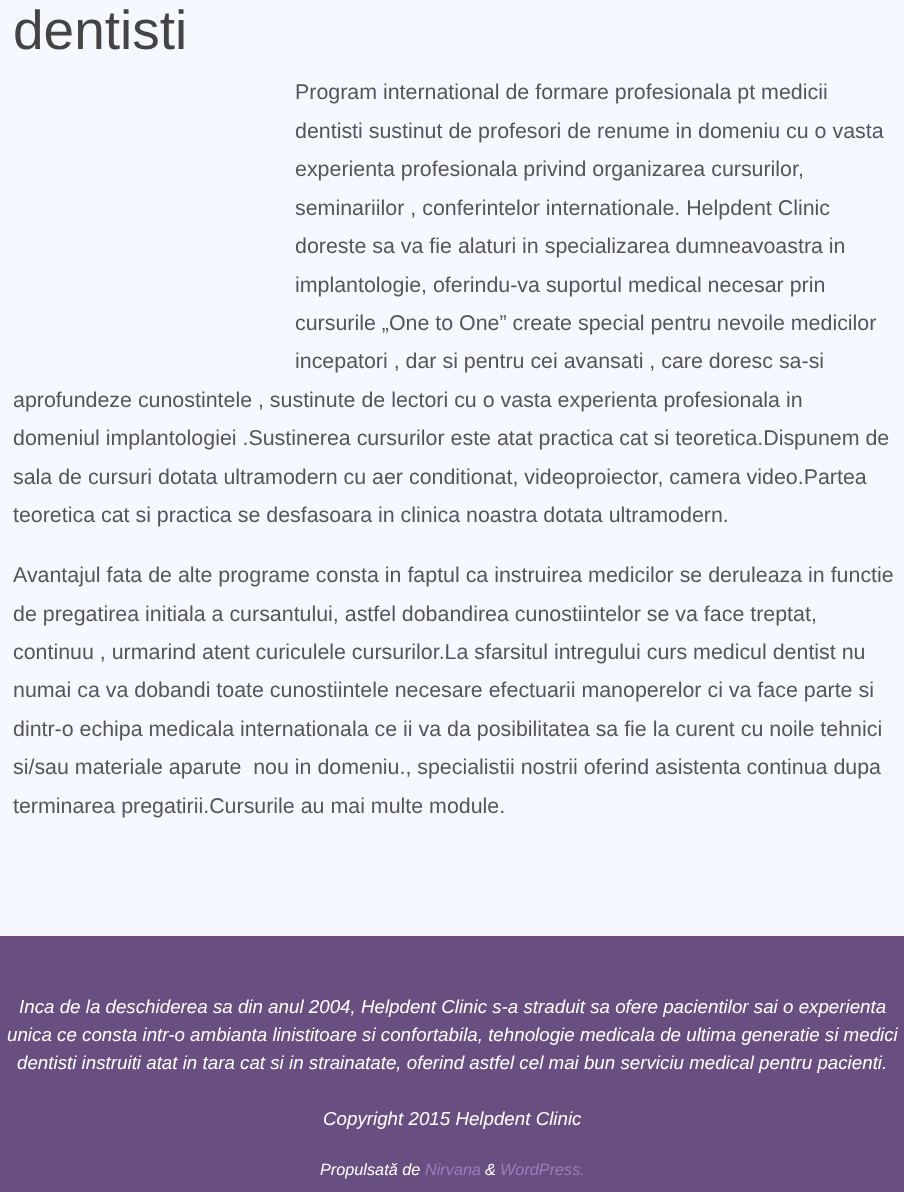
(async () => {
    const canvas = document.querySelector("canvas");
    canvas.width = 904;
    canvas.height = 1192;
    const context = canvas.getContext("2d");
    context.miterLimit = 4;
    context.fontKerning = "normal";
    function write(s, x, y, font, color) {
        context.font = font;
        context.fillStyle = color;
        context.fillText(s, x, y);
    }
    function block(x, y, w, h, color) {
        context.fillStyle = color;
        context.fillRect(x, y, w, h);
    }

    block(0, 0, 904, 1192, "rgb(246, 248, 255)");
    write("dentisti", 13, 49, "55px Liberation Sans", "rgb(68, 68, 68)");
    write("Program international de formare profesionala pt medicii", 295, 99, "21.4px Liberation Sans", "rgb(85, 85, 85)");
    write("dentisti sustinut de profesori de renume in domeniu cu o vasta", 295, 138, "21.4px Liberation Sans", "rgb(85, 85, 85)");
    write("experienta profesionala privind organizarea cursurilor,", 295, 176, "21.4px Liberation Sans", "rgb(85, 85, 85)");
    write("seminariilor , conferintelor internationale. Helpdent Clinic", 295, 215, "21.4px Liberation Sans", "rgb(85, 85, 85)");
    write("doreste sa va fie alaturi in specializarea dumneavoastra in", 295, 253, "21.4px Liberation Sans", "rgb(85, 85, 85)");
    write("implantologie, oferindu-va suportul medical necesar prin", 295, 292, "21.4px Liberation Sans", "rgb(85, 85, 85)");
    write("cursurile „One to One” create special pentru nevoile medicilor", 295, 330, "21.4px Liberation Sans", "rgb(85, 85, 85)");
    write("incepatori , dar si pentru cei avansati , care doresc sa-si", 295, 368, "21.4px Liberation Sans", "rgb(85, 85, 85)");
    write("aprofundeze cunostintele , sustinute de lectori cu o vasta experienta profesionala in", 13, 407, "21.4px Liberation Sans", "rgb(85, 85, 85)");
    write("domeniul implantologiei .Sustinerea cursurilor este atat practica cat si teoretica.Dispunem de", 13, 445, "21.4px Liberation Sans", "rgb(85, 85, 85)");
    write("sala de cursuri dotata ultramodern cu aer conditionat, videoproiector, camera video.Partea", 13, 484, "21.4px Liberation Sans", "rgb(85, 85, 85)");
    write("teoretica cat si practica se desfasoara in clinica noastra dotata ultramodern.", 13, 522, "21.4px Liberation Sans", "rgb(85, 85, 85)");
    write("Avantajul fata de alte programe consta in faptul ca instruirea medicilor se deruleaza in functie", 13, 582, "21.4px Liberation Sans", "rgb(85, 85, 85)");
    write("de pregatirea initiala a cursantului, astfel dobandirea cunostiintelor se va face treptat,", 13, 621, "21.4px Liberation Sans", "rgb(85, 85, 85)");
    write("continuu , urmarind atent curiculele cursurilor.La sfarsitul intregului curs medicul dentist nu", 13, 659, "21.4px Liberation Sans", "rgb(85, 85, 85)");
    write("numai ca va dobandi toate cunostiintele necesare efectuarii manoperelor ci va face parte si", 13, 697, "21.4px Liberation Sans", "rgb(85, 85, 85)");
    write("dintr-o echipa medicala internationala ce ii va da posibilitatea sa fie la curent cu noile tehnici", 13, 736, "21.4px Liberation Sans", "rgb(85, 85, 85)");
    write("si/sau materiale aparute  nou in domeniu., specialistii nostrii oferind asistenta continua dupa", 13, 774, "21.4px Liberation Sans", "rgb(85, 85, 85)");
    write("terminarea pregatirii.Cursurile au mai multe module.", 13, 813, "21.4px Liberation Sans", "rgb(85, 85, 85)");
    block(0, 936, 904, 256, "rgb(105, 78, 129)");
    write("Inca de la deschiderea sa din anul 2004, Helpdent Clinic s-a straduit sa ofere pacientilor sai o experienta", 19, 1013, "italic 18.75px Liberation Sans", "rgb(255, 255, 255)");
    write("unica ce consta intr-o ambianta linistitoare si confortabila, tehnologie medicala de ultima generatie si medici", 7, 1041, "italic 18.75px Liberation Sans", "rgb(255, 255, 255)");
    write("dentisti instruiti atat in tara cat si in strainatate, oferind astfel cel mai bun serviciu medical pentru pacienti.", 17, 1069, "italic 18.75px Liberation Sans", "rgb(255, 255, 255)");
    write("Copyright 2015 Helpdent Clinic", 323, 1125, "italic 18.75px Liberation Sans", "rgb(255, 255, 255)");
    write("Propulsată de", 320, 1175, "italic 16.25px Liberation Sans", "rgb(255, 255, 255)");
    write("Nirvana", 425, 1175, "italic 16.25px Liberation Sans", "rgb(158, 124, 184)");
    write("&", 485, 1175, "italic 16.25px Liberation Sans", "rgb(255, 255, 255)");
    write("WordPress.", 500, 1175, "italic 16.25px Liberation Sans", "rgb(158, 124, 184)");
})();
